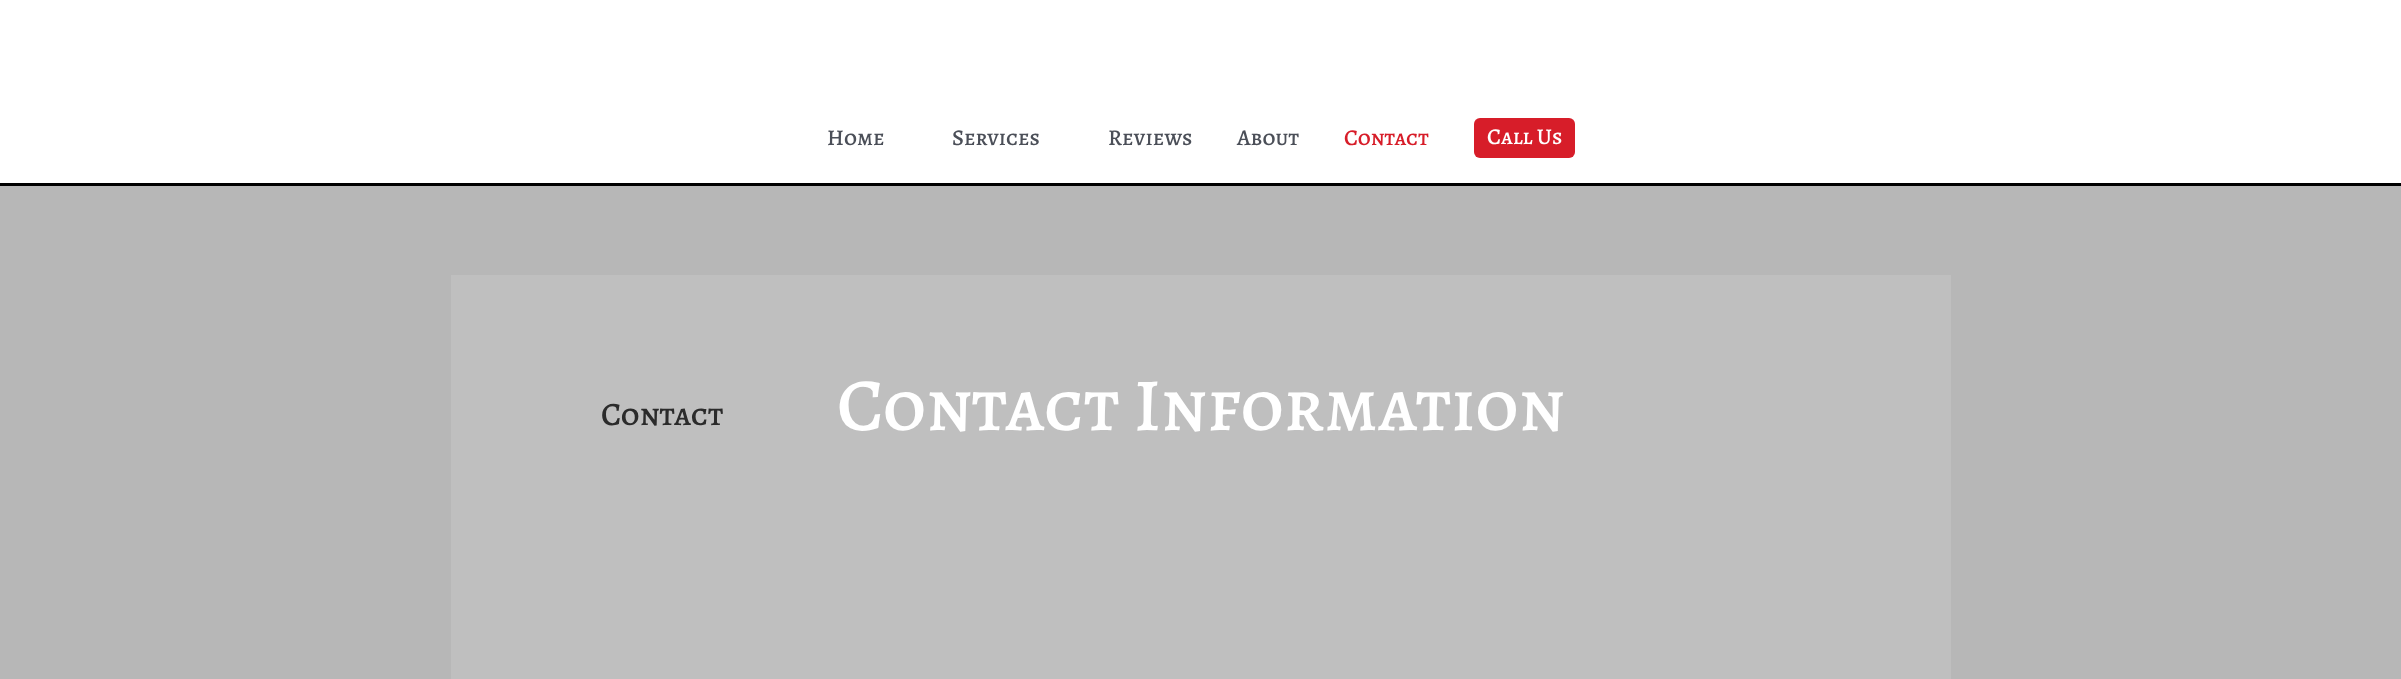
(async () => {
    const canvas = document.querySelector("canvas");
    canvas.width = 2401;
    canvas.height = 679;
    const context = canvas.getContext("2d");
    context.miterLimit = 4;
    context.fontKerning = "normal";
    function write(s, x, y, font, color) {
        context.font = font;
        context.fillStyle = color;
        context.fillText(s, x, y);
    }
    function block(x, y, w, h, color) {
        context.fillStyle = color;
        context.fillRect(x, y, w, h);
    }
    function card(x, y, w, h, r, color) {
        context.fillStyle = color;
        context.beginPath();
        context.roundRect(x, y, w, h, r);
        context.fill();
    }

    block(0, 0, 2401, 679, "rgb(245, 245, 245)");
    block(0, 0, 2401, 183, "rgb(255, 255, 255)");
    block(0, 183, 2401, 3, "rgb(0, 0, 0)");
    write("Home", 827, 145, "500 22.5px Alegreya SC", "rgb(75, 79, 88)");
    write("Services", 952, 145, "500 22.5px Alegreya SC", "rgb(75, 79, 88)");
    write("Reviews", 1108, 145, "500 22.5px Alegreya SC", "rgb(75, 79, 88)");
    write("About", 1237, 145, "500 22.5px Alegreya SC", "rgb(75, 79, 88)");
    write("Contact", 1344, 145, "500 22.5px Alegreya SC", "rgb(215, 29, 41)");
    card(1474, 118, 101, 40, 6, "rgb(215, 29, 41)");
    write("Call Us", 1487, 144, "500 22.5px Alegreya SC", "rgb(255, 255, 255)");
    block(451, 275, 1500, 404, "rgb(255, 255, 255)");
    write("Contact", 601, 425, "500 32.5px Alegreya SC", "rgb(58, 58, 58)");
    block(0, 186, 2401, 493, "rgba(0, 0, 0, 0.25)");
    write("Contact Information", 837, 430, "500 75px Alegreya SC", "rgb(255, 255, 255)");
})();
